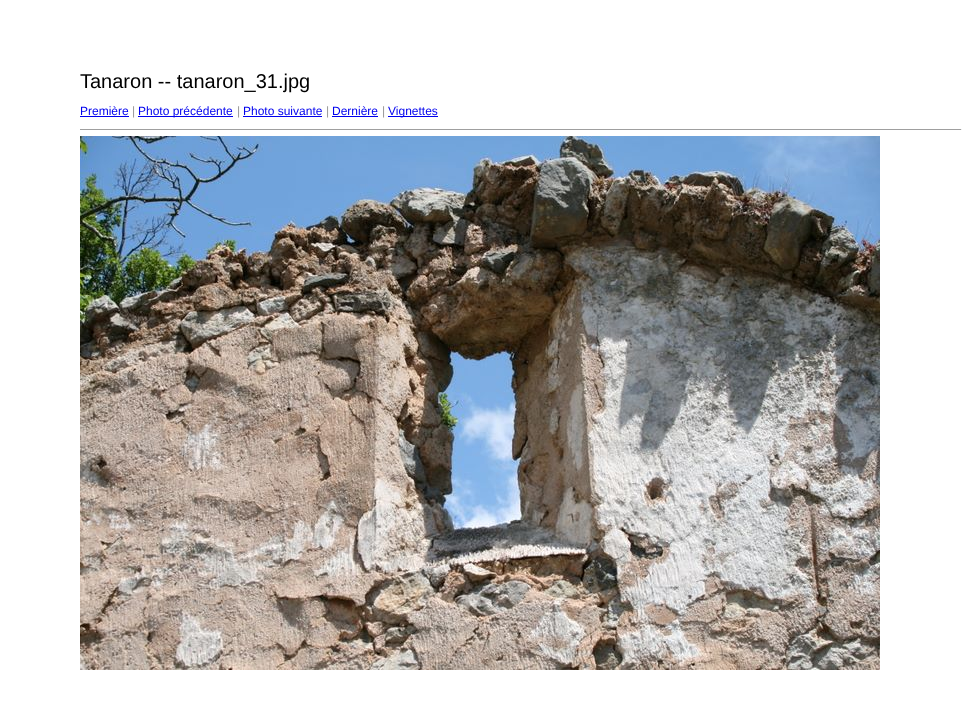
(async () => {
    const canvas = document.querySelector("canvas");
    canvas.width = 970;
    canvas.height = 712;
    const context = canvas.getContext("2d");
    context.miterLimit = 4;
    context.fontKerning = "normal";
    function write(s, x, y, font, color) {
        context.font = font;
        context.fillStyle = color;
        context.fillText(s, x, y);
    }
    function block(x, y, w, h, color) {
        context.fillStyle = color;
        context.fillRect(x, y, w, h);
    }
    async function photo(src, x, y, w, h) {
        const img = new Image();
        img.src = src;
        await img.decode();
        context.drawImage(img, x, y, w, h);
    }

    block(0, 0, 970, 712, "rgb(255, 255, 255)");
    write("Tanaron -- tanaron_31.jpg", 80, 88, "20px Liberation Sans", "rgb(0, 0, 0)");
    write("Première", 80, 115, "12px Liberation Sans", "rgb(0, 0, 238)");
    block(80, 116, 49, 1, "rgb(0, 0, 238)");
    write("|", 132, 115, "12px Liberation Sans", "rgb(151, 151, 151)");
    block(138, 116, 95, 1, "rgb(0, 0, 238)");
    write("Photo précédente", 138, 115, "12px Liberation Sans", "rgb(0, 0, 238)");
    write("|", 237, 115, "12px Liberation Sans", "rgb(151, 151, 151)");
    write("Photo suivante", 243, 115, "12px Liberation Sans", "rgb(0, 0, 238)");
    block(243, 116, 79, 1, "rgb(0, 0, 238)");
    write("|", 326, 115, "12px Liberation Sans", "rgb(151, 151, 151)");
    write("Dernière", 332, 115, "12px Liberation Sans", "rgb(0, 0, 238)");
    block(332, 116, 46, 1, "rgb(0, 0, 238)");
    write("|", 382, 115, "12px Liberation Sans", "rgb(151, 151, 151)");
    block(388, 116, 50, 1, "rgb(0, 0, 238)");
    write("Vignettes", 388, 115, "12px Liberation Sans", "rgb(0, 0, 238)");
    block(80, 129, 882, 1, "rgb(159, 159, 159)");
    block(961, 129, 1, 1, "rgb(238, 238, 238)");
    await photo("media/1.png", 80, 136, 800, 534);
})();
